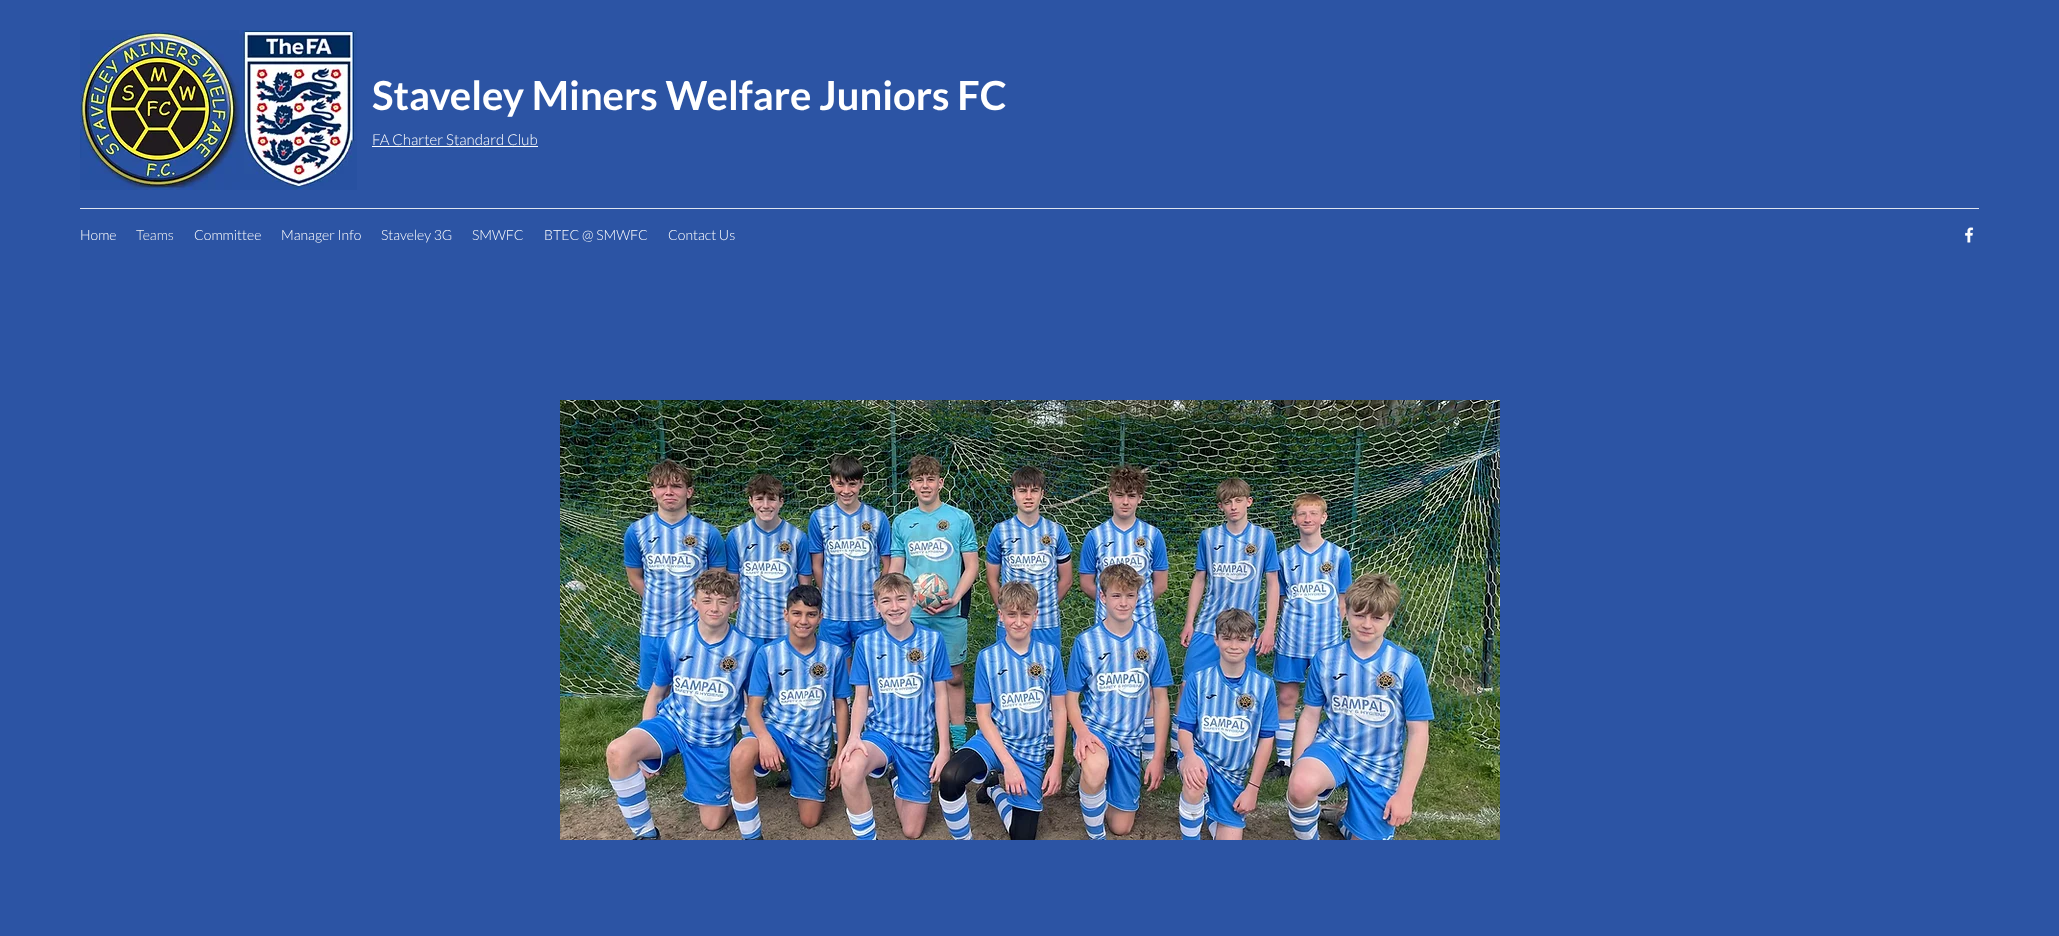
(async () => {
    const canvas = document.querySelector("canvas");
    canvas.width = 2059;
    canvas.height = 936;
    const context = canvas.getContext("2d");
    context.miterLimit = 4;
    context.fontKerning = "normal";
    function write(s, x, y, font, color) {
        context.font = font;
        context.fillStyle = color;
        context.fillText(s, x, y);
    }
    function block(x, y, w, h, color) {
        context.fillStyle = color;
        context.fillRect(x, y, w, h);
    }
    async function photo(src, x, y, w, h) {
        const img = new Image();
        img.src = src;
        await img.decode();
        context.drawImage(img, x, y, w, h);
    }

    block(0, 0, 2059, 936, "rgb(44, 84, 164)");
    await photo("media/1.png", 80, 30, 277, 160);
    write("Staveley Miners Welfare Juniors FC", 372, 110, "bold 40px Lato", "rgb(255, 255, 255)");
    write("FA Charter Standard Club", 372, 145, "300 15px Lato", "rgb(255, 255, 255)");
    block(372, 146, 166, 1, "rgb(255, 255, 255)");
    block(80, 208, 1899, 1, "rgb(223, 229, 241)");
    write("Home", 80, 240, "300 14px Lato", "rgb(255, 255, 255)");
    write("Teams", 136, 240, "300 14px Lato", "rgb(240, 240, 240)");
    write("Committee", 194, 240, "300 14px Lato", "rgb(255, 255, 255)");
    write("Manager Info", 281, 240, "300 14px Lato", "rgb(255, 255, 255)");
    write("Staveley 3G", 381, 240, "300 14px Lato", "rgb(255, 255, 255)");
    write("SMWFC", 472, 240, "300 14px Lato", "rgb(255, 255, 255)");
    write("BTEC @ SMWFC", 544, 240, "300 14px Lato", "rgb(255, 255, 255)");
    write("Contact Us", 668, 240, "300 14px Lato", "rgb(255, 255, 255)");
    await photo("media/2.png", 1965, 227, 9, 16);
    await photo("media/3.png", 560, 400, 940, 440);
})();
